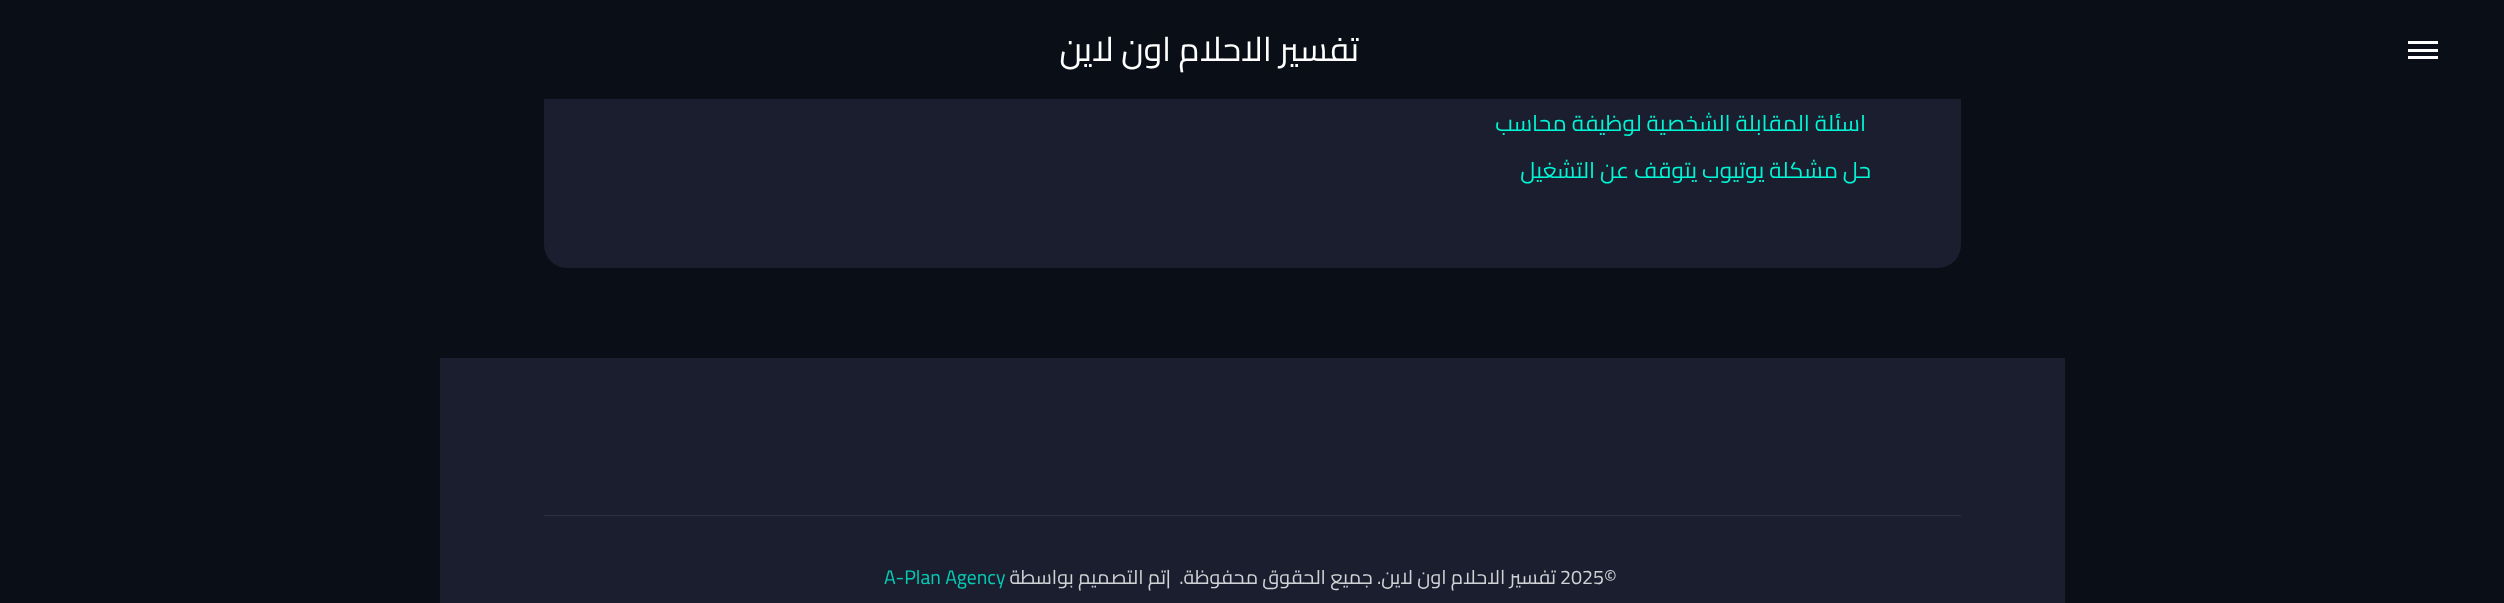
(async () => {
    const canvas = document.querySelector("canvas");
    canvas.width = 2504;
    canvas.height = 603;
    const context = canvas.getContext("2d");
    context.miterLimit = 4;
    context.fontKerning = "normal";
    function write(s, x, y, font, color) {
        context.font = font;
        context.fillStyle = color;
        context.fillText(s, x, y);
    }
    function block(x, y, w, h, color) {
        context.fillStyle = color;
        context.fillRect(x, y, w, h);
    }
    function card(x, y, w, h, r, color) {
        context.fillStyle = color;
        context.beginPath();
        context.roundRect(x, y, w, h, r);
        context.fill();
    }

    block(0, 0, 2504, 603, "rgb(10, 14, 23)");
    card(544, -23, 1417, 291, 23, "rgb(26, 30, 46)");
    block(544, 0, 1417, 99, "rgb(10, 14, 23)");
    block(2408, 49, 30, 3, "rgb(255, 255, 255)");
    block(2408, 41, 30, 3, "rgb(255, 255, 255)");
    block(2408, 56, 30, 3, "rgb(255, 255, 255)");
    context.direction = "rtl";
    write("تفسير الاحلام اون لاين", 1359, 61, "33.75px Cairo", "rgb(255, 255, 255)");
    write("اسئلة المقابلة الشخصية لوظيفة محاسب", 1866, 131, "22.5px Cairo", "rgb(0, 245, 212)");
    write("حل مشكلة يوتيوب يتوقف عن التشغيل", 1871, 178, "22.5px Cairo", "rgb(0, 245, 212)");
    block(440, 358, 1625, 245, "rgb(26, 30, 46)");
    block(544, 515, 1417, 1, "rgb(44, 48, 63)");
    context.direction = "ltr";
    write("2025©", 1560, 584, "19.7px Cairo", "rgb(209, 210, 213)");
    context.direction = "rtl";
    write("تفسير الاحلام اون لاين. جميع الحقوق محفوظة.", 1556, 584, "19.7px Cairo", "rgb(209, 210, 213)");
    context.direction = "ltr";
    write("|", 1166, 584, "19.7px Cairo", "rgb(209, 210, 213)");
    context.direction = "rtl";
    write("تم التصميم بواسطة", 1166, 584, "19.7px Cairo", "rgb(209, 210, 213)");
    context.direction = "ltr";
    write("A-Plan Agency", 884, 584, "19.7px Cairo", "rgb(5, 202, 179)");
})();
